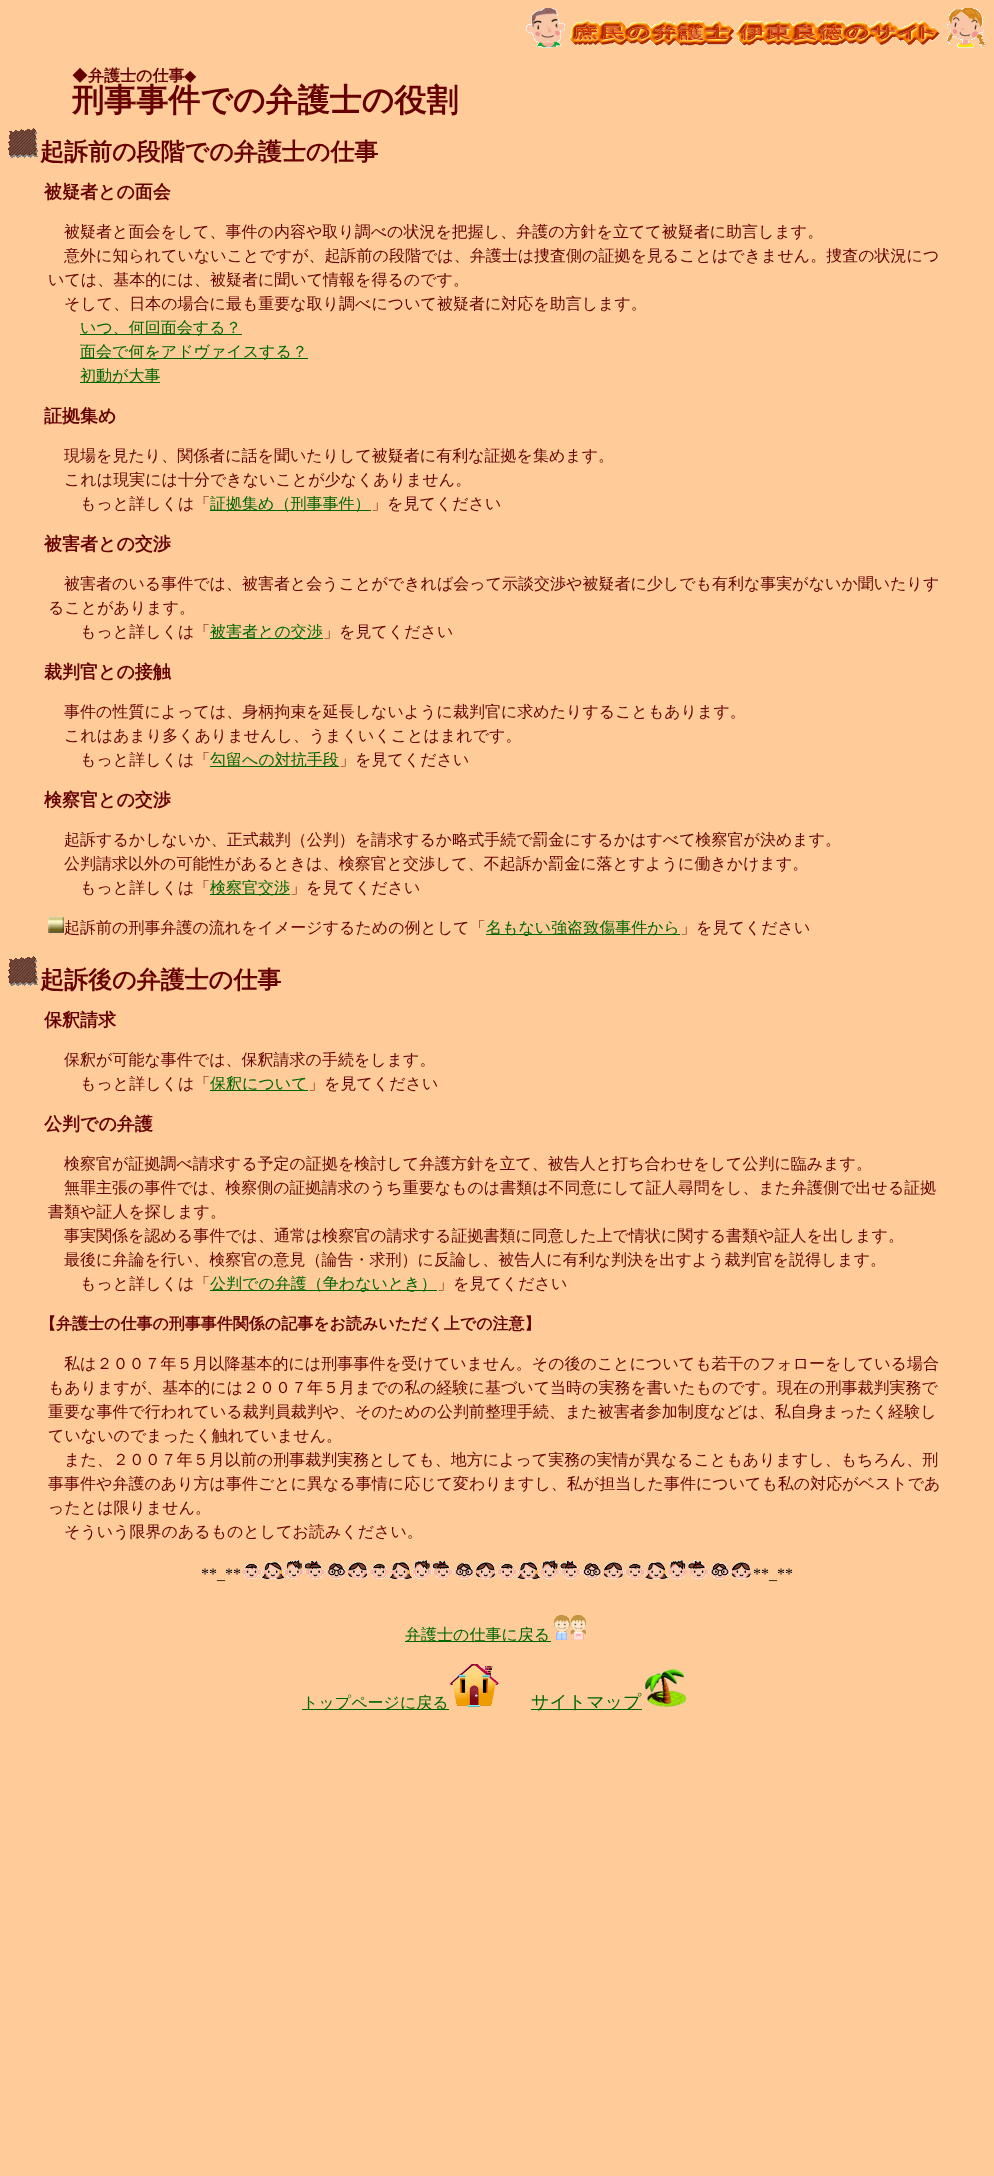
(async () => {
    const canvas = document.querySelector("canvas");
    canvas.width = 994;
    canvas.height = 2176;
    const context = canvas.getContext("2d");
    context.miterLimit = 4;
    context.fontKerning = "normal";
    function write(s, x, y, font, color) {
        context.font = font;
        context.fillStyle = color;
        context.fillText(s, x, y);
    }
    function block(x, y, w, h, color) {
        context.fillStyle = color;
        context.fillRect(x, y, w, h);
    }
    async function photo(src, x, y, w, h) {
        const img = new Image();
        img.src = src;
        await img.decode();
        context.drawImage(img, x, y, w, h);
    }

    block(0, 0, 994, 2176, "rgb(255, 204, 153)");
    await photo("media/1.png", 526, 8, 460, 40);
    write("◆", 72, 81, "500 16px WenQuanYi Zen Hei", "rgb(102, 0, 0)");
    write("弁護士の仕事", 88, 81, "bold 16px WenQuanYi Zen Hei", "rgb(102, 0, 0)");
    write("◆", 184, 81, "16px DejaVu Sans", "rgb(102, 0, 0)");
    write("刑事事件での弁護士の役割", 72, 111, "bold 32px WenQuanYi Zen Hei", "rgb(102, 0, 0)");
    await photo("media/2.png", 8, 128, 30, 30);
    write("起訴前の段階での弁護士の仕事", 40, 160, "bold 24px WenQuanYi Zen Hei", "rgb(102, 0, 0)");
    write("被疑者との面会", 44, 198, "bold 18px WenQuanYi Zen Hei", "rgb(102, 0, 0)");
    write("被疑者と面会をして、事件の内容や取り調べの状況を把握し、弁護の方針を立てて被疑者に助言します。", 64, 237, "500 16px WenQuanYi Zen Hei", "rgb(102, 0, 0)");
    write("意外に知られていないことですが、起訴前の段階では、弁護士は捜査側の証拠を見ることはできません。捜査の状況につ", 64, 261, "500 16px WenQuanYi Zen Hei", "rgb(102, 0, 0)");
    write("いては、基本的には、被疑者に聞いて情報を得るのです。", 48, 285, "500 16px WenQuanYi Zen Hei", "rgb(102, 0, 0)");
    write("そして、日本の場合に最も重要な取り調べについて被疑者に対応を助言します。", 64, 309, "500 16px WenQuanYi Zen Hei", "rgb(102, 0, 0)");
    block(80, 334, 162, 1, "rgb(0, 102, 0)");
    write("いつ、何回面会する？", 80, 333, "500 16px WenQuanYi Zen Hei", "rgb(0, 102, 0)");
    block(80, 358, 228, 1, "rgb(0, 102, 0)");
    write("面会で何をアドヴァイスする？", 80, 357, "500 16px WenQuanYi Zen Hei", "rgb(0, 102, 0)");
    block(80, 382, 80, 1, "rgb(0, 102, 0)");
    write("初動が大事", 80, 381, "500 16px WenQuanYi Zen Hei", "rgb(0, 102, 0)");
    write("証拠集め", 44, 422, "bold 18px WenQuanYi Zen Hei", "rgb(102, 0, 0)");
    write("現場を見たり、関係者に話を聞いたりして被疑者に有利な証拠を集めます。", 64, 461, "500 16px WenQuanYi Zen Hei", "rgb(102, 0, 0)");
    write("これは現実には十分できないことが少なくありません。", 64, 485, "500 16px WenQuanYi Zen Hei", "rgb(102, 0, 0)");
    write("もっと詳しくは「", 80, 509, "500 16px WenQuanYi Zen Hei", "rgb(102, 0, 0)");
    block(210, 510, 161, 1, "rgb(0, 102, 0)");
    write("証拠集め（刑事事件）", 210, 509, "500 16px WenQuanYi Zen Hei", "rgb(0, 102, 0)");
    write("」を見てください", 371, 509, "500 16px WenQuanYi Zen Hei", "rgb(102, 0, 0)");
    write("被害者との交渉", 44, 550, "bold 18px WenQuanYi Zen Hei", "rgb(102, 0, 0)");
    write("被害者のいる事件では、被害者と会うことができれば会って示談交渉や被疑者に少しでも有利な事実がないか聞いたりす", 64, 589, "500 16px WenQuanYi Zen Hei", "rgb(102, 0, 0)");
    write("ることがあります。", 48, 613, "500 16px WenQuanYi Zen Hei", "rgb(102, 0, 0)");
    write("もっと詳しくは「", 80, 637, "500 16px WenQuanYi Zen Hei", "rgb(102, 0, 0)");
    block(210, 638, 113, 1, "rgb(0, 102, 0)");
    write("被害者との交渉", 210, 637, "500 16px WenQuanYi Zen Hei", "rgb(0, 102, 0)");
    write("」を見てください", 323, 637, "500 16px WenQuanYi Zen Hei", "rgb(102, 0, 0)");
    write("裁判官との接触", 44, 678, "bold 18px WenQuanYi Zen Hei", "rgb(102, 0, 0)");
    write("事件の性質によっては、身柄拘束を延長しないように裁判官に求めたりすることもあります。", 64, 717, "500 16px WenQuanYi Zen Hei", "rgb(102, 0, 0)");
    write("これはあまり多くありませんし、うまくいくことはまれです。", 64, 741, "500 16px WenQuanYi Zen Hei", "rgb(102, 0, 0)");
    write("もっと詳しくは「", 80, 765, "500 16px WenQuanYi Zen Hei", "rgb(102, 0, 0)");
    block(210, 766, 129, 1, "rgb(0, 102, 0)");
    write("勾留への対抗手段", 210, 765, "500 16px WenQuanYi Zen Hei", "rgb(0, 102, 0)");
    write("」を見てください", 339, 765, "500 16px WenQuanYi Zen Hei", "rgb(102, 0, 0)");
    write("検察官との交渉", 44, 806, "bold 18px WenQuanYi Zen Hei", "rgb(102, 0, 0)");
    write("起訴するかしないか、正式裁判（公判）を請求するか略式手続で罰金にするかはすべて検察官が決めます。", 64, 845, "500 16px WenQuanYi Zen Hei", "rgb(102, 0, 0)");
    write("公判請求以外の可能性があるときは、検察官と交渉して、不起訴か罰金に落とすように働きかけます。", 64, 869, "500 16px WenQuanYi Zen Hei", "rgb(102, 0, 0)");
    write("もっと詳しくは「", 80, 893, "500 16px WenQuanYi Zen Hei", "rgb(102, 0, 0)");
    block(210, 894, 80, 1, "rgb(0, 102, 0)");
    write("検察官交渉", 210, 893, "500 16px WenQuanYi Zen Hei", "rgb(0, 102, 0)");
    write("」を見てください", 290, 893, "500 16px WenQuanYi Zen Hei", "rgb(102, 0, 0)");
    await photo("media/3.png", 48, 917, 16, 16);
    write("起訴前の刑事弁護の流れをイメージするための例として「", 64, 933, "500 16px WenQuanYi Zen Hei", "rgb(102, 0, 0)");
    block(486, 934, 194, 1, "rgb(0, 102, 0)");
    write("名もない強盗致傷事件から", 486, 933, "500 16px WenQuanYi Zen Hei", "rgb(0, 102, 0)");
    write("」を見てください", 680, 933, "500 16px WenQuanYi Zen Hei", "rgb(102, 0, 0)");
    await photo("media/2.png", 8, 956, 30, 30);
    write("起訴後の弁護士の仕事", 40, 988, "bold 24px WenQuanYi Zen Hei", "rgb(102, 0, 0)");
    write("保釈請求", 44, 1026, "bold 18px WenQuanYi Zen Hei", "rgb(102, 0, 0)");
    write("保釈が可能な事件では、保釈請求の手続をします。", 64, 1065, "500 16px WenQuanYi Zen Hei", "rgb(102, 0, 0)");
    write("もっと詳しくは「", 80, 1089, "500 16px WenQuanYi Zen Hei", "rgb(102, 0, 0)");
    block(210, 1090, 98, 1, "rgb(0, 102, 0)");
    write("保釈について", 210, 1089, "500 16px WenQuanYi Zen Hei", "rgb(0, 102, 0)");
    write("」を見てください", 308, 1089, "500 16px WenQuanYi Zen Hei", "rgb(102, 0, 0)");
    write("公判での弁護", 44, 1130, "bold 18px WenQuanYi Zen Hei", "rgb(102, 0, 0)");
    write("検察官が証拠調べ請求する予定の証拠を検討して弁護方針を立て、被告人と打ち合わせをして公判に臨みます。", 64, 1169, "500 16px WenQuanYi Zen Hei", "rgb(102, 0, 0)");
    write("無罪主張の事件では、検察側の証拠請求のうち重要なものは書類は不同意にして証人尋問をし、また弁護側で出せる証拠", 64, 1193, "500 16px WenQuanYi Zen Hei", "rgb(102, 0, 0)");
    write("書類や証人を探します。", 48, 1217, "500 16px WenQuanYi Zen Hei", "rgb(102, 0, 0)");
    write("事実関係を認める事件では、通常は検察官の請求する証拠書類に同意した上で情状に関する書類や証人を出します。", 64, 1241, "500 16px WenQuanYi Zen Hei", "rgb(102, 0, 0)");
    write("最後に弁論を行い、検察官の意見（論告・求刑）に反論し、被告人に有利な判決を出すよう裁判官を説得します。", 64, 1265, "500 16px WenQuanYi Zen Hei", "rgb(102, 0, 0)");
    write("もっと詳しくは「", 80, 1289, "500 16px WenQuanYi Zen Hei", "rgb(102, 0, 0)");
    block(210, 1290, 227, 1, "rgb(0, 102, 0)");
    write("公判での弁護（争わないとき）", 210, 1289, "500 16px WenQuanYi Zen Hei", "rgb(0, 102, 0)");
    write("」を見てください", 437, 1289, "500 16px WenQuanYi Zen Hei", "rgb(102, 0, 0)");
    write("【弁護士の仕事の刑事事件関係の記事をお読みいただく上での注意】", 40, 1329, "bold 16px WenQuanYi Zen Hei", "rgb(102, 0, 0)");
    write("私は２００７年５月以降基本的には刑事事件を受けていません。その後のことについても若干のフォローをしている場合", 64, 1369, "500 16px WenQuanYi Zen Hei", "rgb(102, 0, 0)");
    write("もありますが、基本的には２００７年５月までの私の経験に基づいて当時の実務を書いたものです。現在の刑事裁判実務で", 48, 1393, "500 16px WenQuanYi Zen Hei", "rgb(102, 0, 0)");
    write("重要な事件で行われている裁判員裁判や、そのための公判前整理手続、また被害者参加制度などは、私自身まったく経験し", 48, 1417, "500 16px WenQuanYi Zen Hei", "rgb(102, 0, 0)");
    write("ていないのでまったく触れていません。", 48, 1441, "500 16px WenQuanYi Zen Hei", "rgb(102, 0, 0)");
    write("また、２００７年５月以前の刑事裁判実務としても、地方によって実務の実情が異なることもありますし、もちろん、刑", 64, 1465, "500 16px WenQuanYi Zen Hei", "rgb(102, 0, 0)");
    write("事事件や弁護のあり方は事件ごとに異なる事情に応じて変わりますし、私が担当した事件についても私の対応がベストであ", 48, 1489, "500 16px WenQuanYi Zen Hei", "rgb(102, 0, 0)");
    write("ったとは限りません。", 48, 1513, "500 16px WenQuanYi Zen Hei", "rgb(102, 0, 0)");
    write("そういう限界のあるものとしてお読みください。", 64, 1537, "500 16px WenQuanYi Zen Hei", "rgb(102, 0, 0)");
    write("**_**", 201, 1579, "16px Liberation Serif", "rgb(0, 0, 0)");
    await photo("media/4.png", 242, 1560, 509, 19);
    write("**_**", 753, 1579, "16px Liberation Serif", "rgb(0, 0, 0)");
    block(405, 1641, 146, 1, "rgb(0, 102, 0)");
    write("弁護士の仕事に戻る", 405, 1640, "500 16px WenQuanYi Zen Hei", "rgb(0, 102, 0)");
    await photo("media/5.png", 554, 1615, 32, 25);
    block(302, 1709, 147, 1, "rgb(0, 102, 0)");
    write("トップページに戻る", 302, 1708, "500 16px WenQuanYi Zen Hei", "rgb(0, 102, 0)");
    await photo("media/6.png", 449, 1664, 50, 43);
    block(531, 1709, 111, 1, "rgb(0, 102, 0)");
    write("サイトマップ", 531, 1708, "500 18px WenQuanYi Zen Hei", "rgb(0, 102, 0)");
    await photo("media/7.png", 645, 1669, 42, 38);
})();
